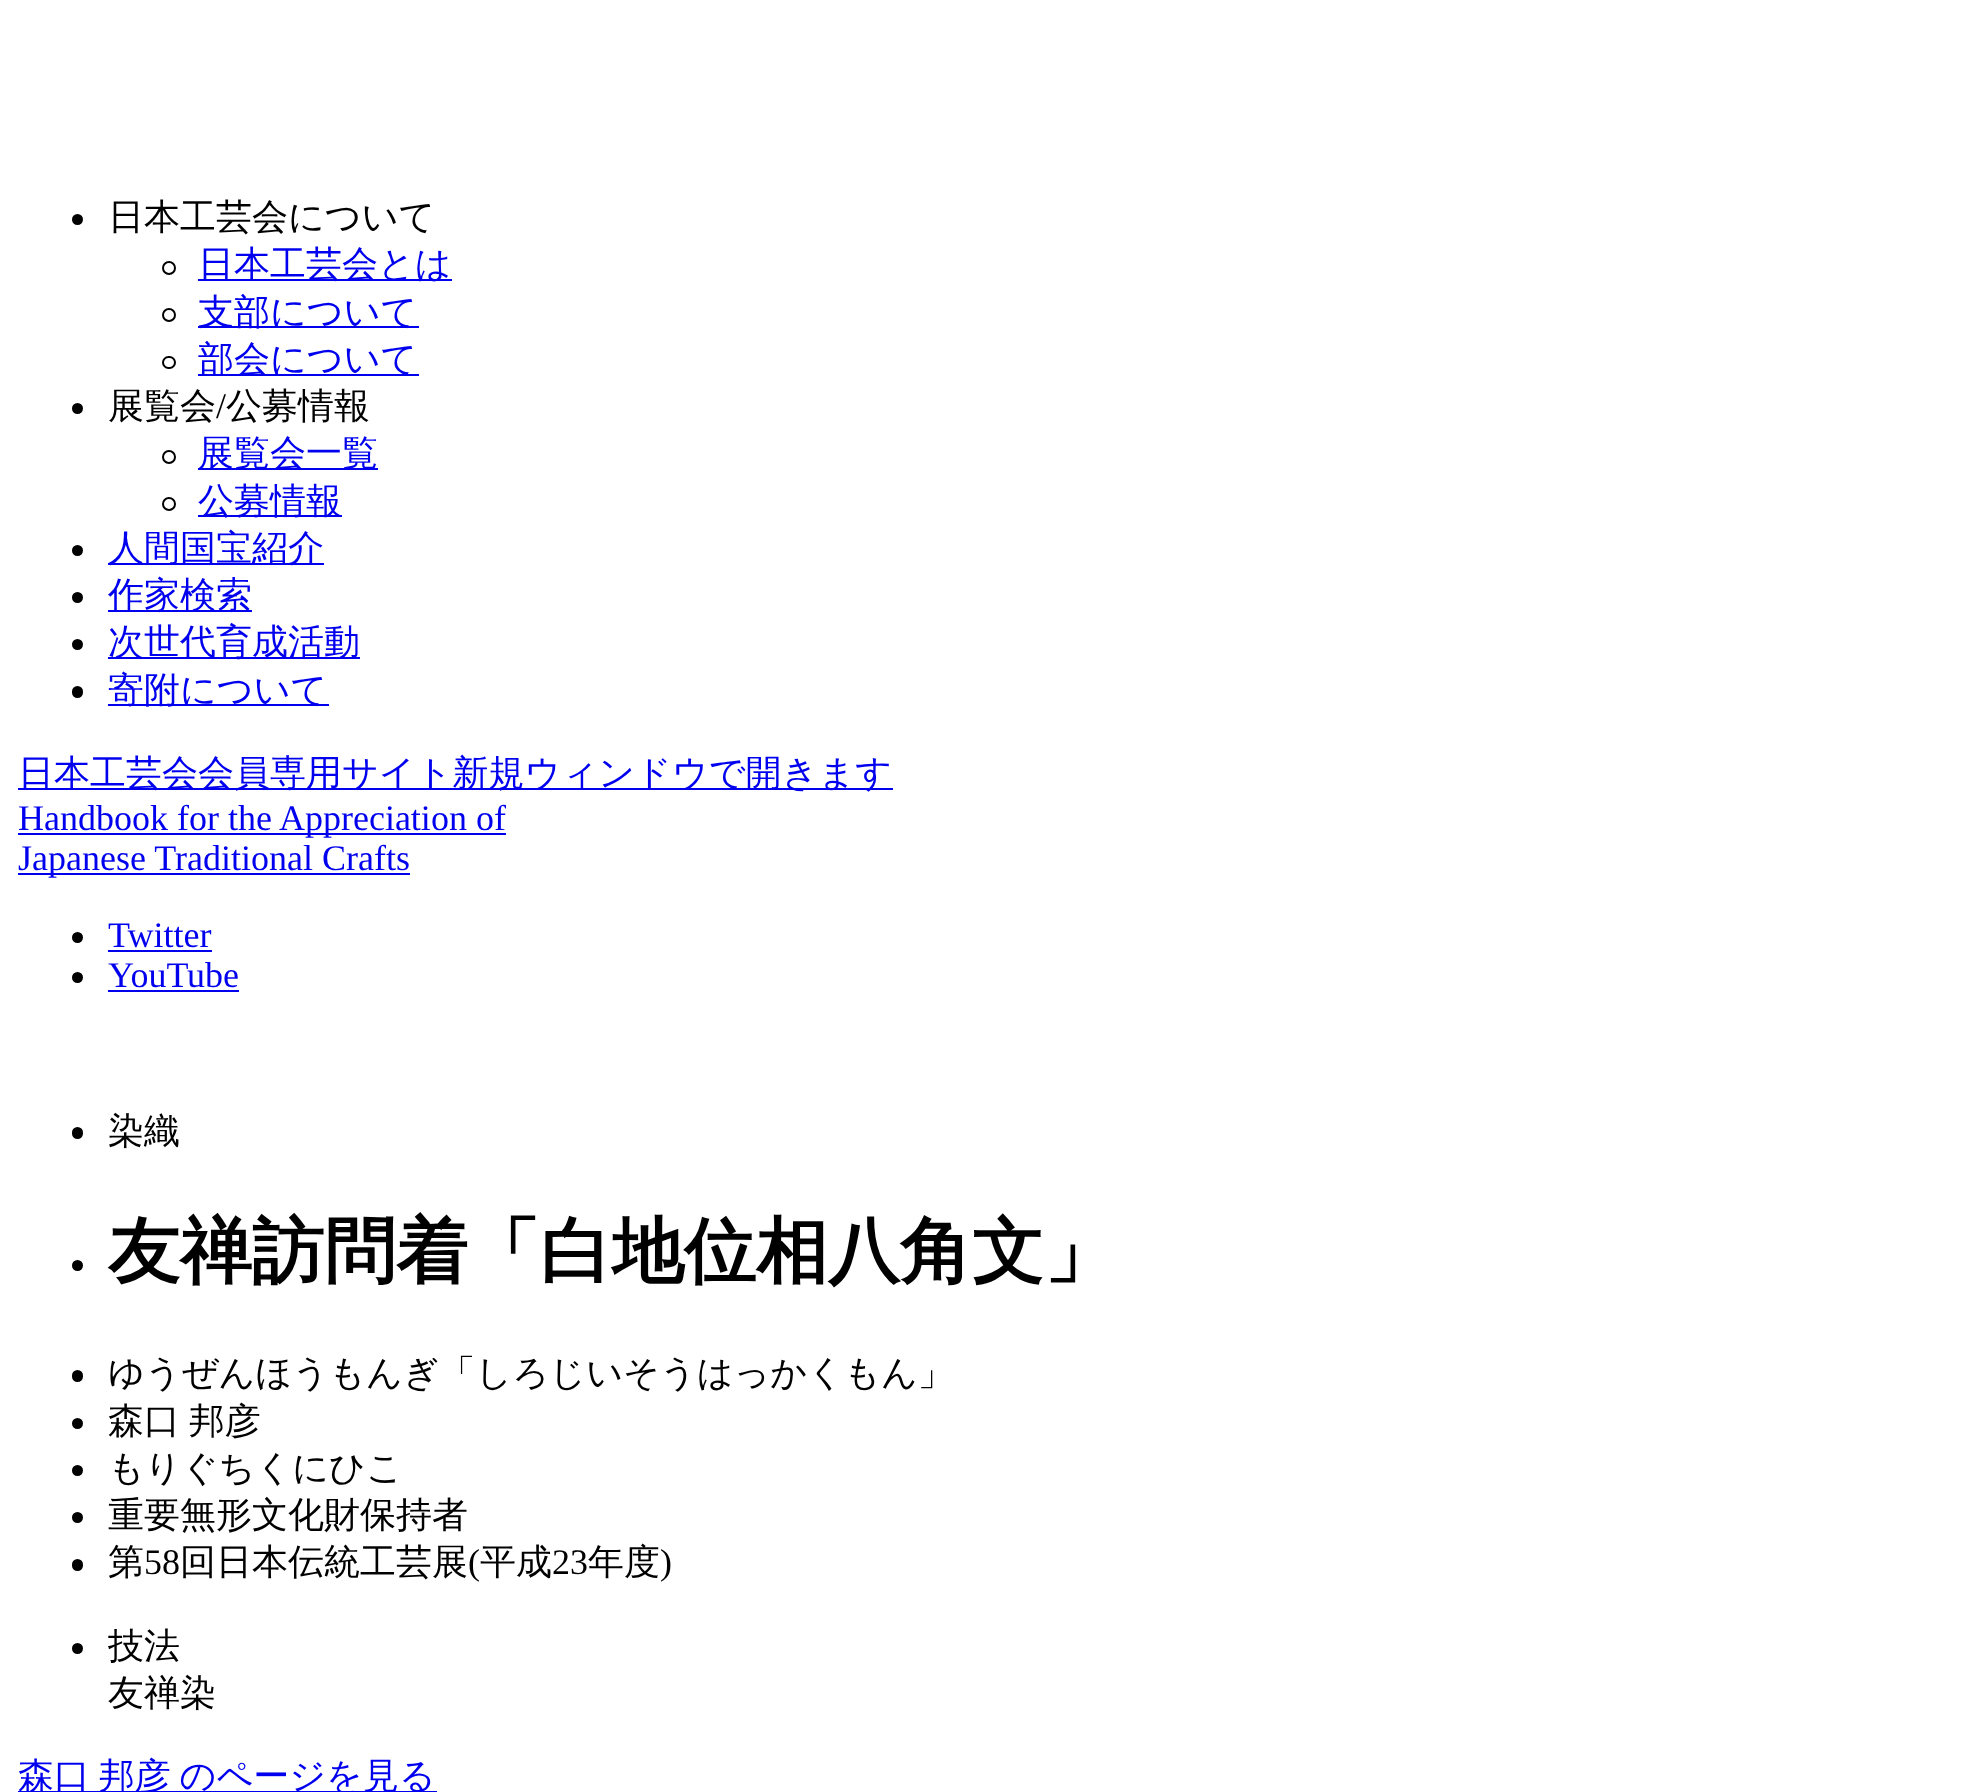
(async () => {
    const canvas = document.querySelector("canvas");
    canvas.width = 1961;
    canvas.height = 1792;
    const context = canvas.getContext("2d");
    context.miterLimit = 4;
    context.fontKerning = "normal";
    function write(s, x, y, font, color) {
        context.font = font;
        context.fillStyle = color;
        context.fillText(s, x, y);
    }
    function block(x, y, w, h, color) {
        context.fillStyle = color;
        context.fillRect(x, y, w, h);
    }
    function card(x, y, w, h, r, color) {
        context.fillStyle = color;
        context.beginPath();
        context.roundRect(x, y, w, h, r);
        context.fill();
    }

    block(0, 0, 1961, 1792, "rgb(255, 255, 255)");
    context.fillStyle = "rgb(0, 0, 0)";
    context.beginPath();
    context.arc(77.5, 219.5, 5.5, 0, Math.PI * 2);
    context.fill();
    write("日本工芸会について", 108, 229, "500 36px WenQuanYi Zen Hei", "rgb(0, 0, 0)");
    context.beginPath();
    context.arc(169, 268, 6, 0, Math.PI * 2);
    context.strokeStyle = "rgb(0, 0, 0)";
    context.lineWidth = 2;
    context.stroke();
    block(198, 279, 254, 2, "rgb(0, 0, 238)");
    write("日本工芸会とは", 198, 276, "500 36px WenQuanYi Zen Hei", "rgb(0, 0, 238)");
    context.beginPath();
    context.arc(169, 315, 6, 0, Math.PI * 2);
    context.stroke();
    block(198, 326, 221, 2, "rgb(0, 0, 238)");
    write("支部について", 198, 324, "500 36px WenQuanYi Zen Hei", "rgb(0, 0, 238)");
    context.beginPath();
    context.roundRect(163, 357, 12, 11, 5.5);
    context.stroke();
    block(198, 374, 221, 2, "rgb(0, 0, 238)");
    write("部会について", 198, 371, "500 36px WenQuanYi Zen Hei", "rgb(0, 0, 238)");
    context.fillStyle = "rgb(0, 0, 0)";
    context.beginPath();
    context.arc(77.5, 408.5, 5.5, 0, Math.PI * 2);
    context.fill();
    write("展覧会", 108, 418, "500 36px WenQuanYi Zen Hei", "rgb(0, 0, 0)");
    write("/", 216, 418, "36px Liberation Serif", "rgb(0, 0, 0)");
    write("公募情報", 226, 418, "500 36px WenQuanYi Zen Hei", "rgb(0, 0, 0)");
    context.beginPath();
    context.arc(169, 457, 6, 0, Math.PI * 2);
    context.stroke();
    block(198, 468, 180, 2, "rgb(0, 0, 238)");
    write("展覧会一覧", 198, 465, "500 36px WenQuanYi Zen Hei", "rgb(0, 0, 238)");
    context.beginPath();
    context.arc(169, 504, 6, 0, Math.PI * 2);
    context.stroke();
    block(198, 515, 144, 2, "rgb(0, 0, 238)");
    write("公募情報", 198, 513, "500 36px WenQuanYi Zen Hei", "rgb(0, 0, 238)");
    context.fillStyle = "rgb(0, 0, 0)";
    context.beginPath();
    context.arc(77.5, 550.5, 5.5, 0, Math.PI * 2);
    context.fill();
    block(108, 563, 216, 2, "rgb(0, 0, 238)");
    write("人間国宝紹介", 108, 560, "500 36px WenQuanYi Zen Hei", "rgb(0, 0, 238)");
    context.fillStyle = "rgb(0, 0, 0)";
    context.beginPath();
    context.arc(77.5, 597.5, 5.5, 0, Math.PI * 2);
    context.fill();
    block(108, 610, 144, 2, "rgb(0, 0, 238)");
    write("作家検索", 108, 607, "500 36px WenQuanYi Zen Hei", "rgb(0, 0, 238)");
    context.fillStyle = "rgb(0, 0, 0)";
    context.beginPath();
    context.arc(77.5, 644.5, 5.5, 0, Math.PI * 2);
    context.fill();
    block(108, 657, 252, 2, "rgb(0, 0, 238)");
    write("次世代育成活動", 108, 654, "500 36px WenQuanYi Zen Hei", "rgb(0, 0, 238)");
    card(72, 686, 11, 12, 5.5, "rgb(0, 0, 0)");
    block(108, 704, 221, 2, "rgb(0, 0, 238)");
    write("寄附について", 108, 702, "500 36px WenQuanYi Zen Hei", "rgb(0, 0, 238)");
    block(18, 788, 875, 2, "rgb(0, 0, 238)");
    write("日本工芸会会員専用サイト新規ウィンドウで開きます", 18, 785, "500 36px WenQuanYi Zen Hei", "rgb(0, 0, 238)");
    block(18, 833, 488, 2, "rgb(0, 0, 238)");
    write("Handbook for the Appreciation of", 18, 830, "36px Liberation Serif", "rgb(0, 0, 238)");
    block(18, 873, 392, 2, "rgb(0, 0, 238)");
    write("Japanese Traditional Crafts", 18, 870, "36px Liberation Serif", "rgb(0, 0, 238)");
    context.fillStyle = "rgb(0, 0, 0)";
    context.beginPath();
    context.arc(77.5, 937.5, 5.5, 0, Math.PI * 2);
    context.fill();
    write("Twitter", 108, 947, "36px Liberation Serif", "rgb(0, 0, 238)");
    block(108, 950, 104, 2, "rgb(0, 0, 238)");
    context.fillStyle = "rgb(0, 0, 0)";
    context.beginPath();
    context.arc(77.5, 977.5, 5.5, 0, Math.PI * 2);
    context.fill();
    write("YouTube", 108, 987, "36px Liberation Serif", "rgb(0, 0, 238)");
    block(108, 990, 131, 2, "rgb(0, 0, 238)");
    card(72, 1127, 11, 12, 5.5, "rgb(0, 0, 0)");
    write("染織", 108, 1143, "500 36px WenQuanYi Zen Hei", "rgb(0, 0, 0)");
    context.beginPath();
    context.arc(77.5, 1265.5, 5.5, 0, Math.PI * 2);
    context.fill();
    write("友禅訪問着「白地位相八角文」", 108, 1276, "bold 72px WenQuanYi Zen Hei", "rgb(0, 0, 0)");
    card(72, 1370, 11, 12, 5.5, "rgb(0, 0, 0)");
    write("ゆうぜんほうもんぎ「しろじいそうはっかくもん」", 108, 1385, "500 36px WenQuanYi Zen Hei", "rgb(0, 0, 0)");
    context.beginPath();
    context.arc(77.5, 1423.5, 5.5, 0, Math.PI * 2);
    context.fill();
    context.wordSpacing = "-2px";
    write("森口 邦彦", 108, 1433, "500 36px WenQuanYi Zen Hei", "rgb(0, 0, 0)");
    context.beginPath();
    context.arc(77.5, 1470.5, 5.5, 0, Math.PI * 2);
    context.fill();
    context.wordSpacing = "0px";
    write("もりぐちくにひこ", 108, 1480, "500 36px WenQuanYi Zen Hei", "rgb(0, 0, 0)");
    context.beginPath();
    context.arc(77.5, 1517.5, 5.5, 0, Math.PI * 2);
    context.fill();
    write("重要無形文化財保持者", 108, 1527, "500 36px WenQuanYi Zen Hei", "rgb(0, 0, 0)");
    card(72, 1559, 11, 12, 5.5, "rgb(0, 0, 0)");
    write("第", 108, 1574, "500 36px WenQuanYi Zen Hei", "rgb(0, 0, 0)");
    write("58", 144, 1574, "36px Liberation Serif", "rgb(0, 0, 0)");
    write("回日本伝統工芸展", 180, 1574, "500 36px WenQuanYi Zen Hei", "rgb(0, 0, 0)");
    write("(", 468, 1574, "36px Liberation Serif", "rgb(0, 0, 0)");
    write("平成", 480, 1574, "500 36px WenQuanYi Zen Hei", "rgb(0, 0, 0)");
    write("23", 552, 1574, "36px Liberation Serif", "rgb(0, 0, 0)");
    write("年度", 588, 1574, "500 36px WenQuanYi Zen Hei", "rgb(0, 0, 0)");
    write(")", 660, 1574, "36px Liberation Serif", "rgb(0, 0, 0)");
    context.beginPath();
    context.arc(77.5, 1648.5, 5.5, 0, Math.PI * 2);
    context.fill();
    write("技法", 108, 1658, "500 36px WenQuanYi Zen Hei", "rgb(0, 0, 0)");
    write("友禅染", 108, 1705, "500 36px WenQuanYi Zen Hei", "rgb(0, 0, 0)");
    block(18, 1791, 419, 1, "rgb(0, 0, 238)");
    context.wordSpacing = "-2px";
    write("森口 邦彦 のページを見る", 18, 1788, "500 36px WenQuanYi Zen Hei", "rgb(0, 0, 238)");
})();
